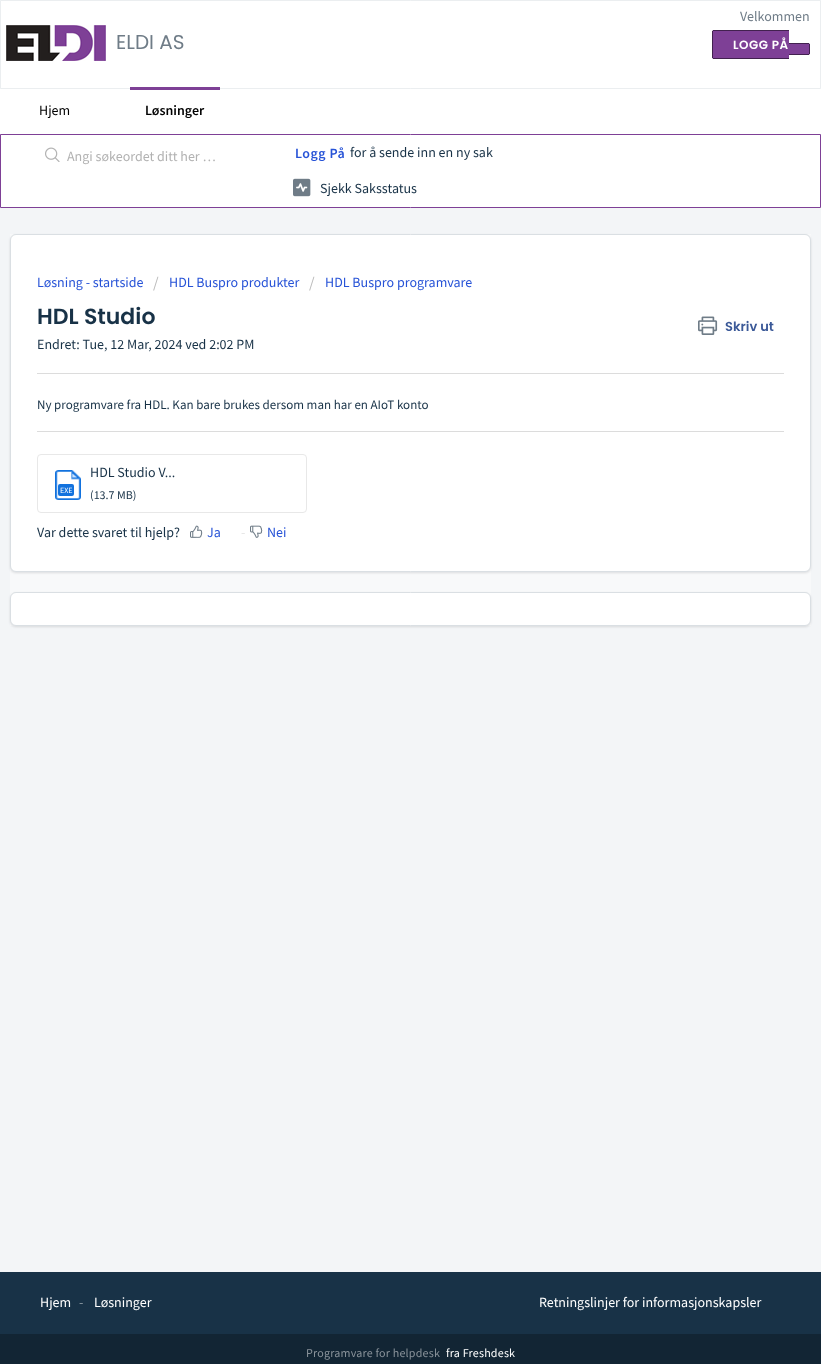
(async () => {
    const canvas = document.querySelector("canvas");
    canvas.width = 821;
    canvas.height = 1364;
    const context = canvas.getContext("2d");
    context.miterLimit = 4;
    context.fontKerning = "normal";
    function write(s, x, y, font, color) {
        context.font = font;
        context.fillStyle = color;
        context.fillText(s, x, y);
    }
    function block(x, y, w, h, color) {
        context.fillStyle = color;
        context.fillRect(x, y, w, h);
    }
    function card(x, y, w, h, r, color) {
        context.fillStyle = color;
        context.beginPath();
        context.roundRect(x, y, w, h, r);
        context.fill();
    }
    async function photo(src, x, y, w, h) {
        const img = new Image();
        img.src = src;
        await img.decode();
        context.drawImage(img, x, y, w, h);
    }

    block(0, 0, 821, 1364, "rgb(243, 245, 247)");
    context.fillStyle = "rgb(255, 255, 255)";
    context.beginPath();
    context.rect(0.5, 0.5, 820, 88);
    context.fill();
    context.strokeStyle = "rgb(235, 238, 240)";
    context.stroke();
    await photo("media/1.png", 6, 25, 100, 36);
    write("ELDI AS", 116, 49, "20px Poppins", "rgb(111, 124, 135)");
    write("Velkommen", 740, 21, "14px Source Sans Pro", "rgb(111, 124, 135)");
    context.fillStyle = "rgb(126, 64, 150)";
    context.beginPath();
    context.roundRect(712, 30, 77, 29, [2, 0, 0, 2]);
    context.fill();
    context.letterSpacing = "0.5px";
    write("LOGG PÅ", 733, 49, "600 12px Poppins", "rgb(255, 255, 255)");
    block(713, 30, 76, 1, "rgb(66, 33, 79)");
    block(713, 58, 76, 1, "rgb(66, 33, 79)");
    block(712, 31, 1, 27, "rgb(66, 33, 79)");
    context.fillStyle = "rgb(126, 64, 150)";
    context.beginPath();
    context.roundRect(789, 43, 21, 12, [0, 2, 2, 0]);
    context.fill();
    block(789, 43, 20, 1, "rgb(66, 33, 79)");
    block(809, 44, 1, 10, "rgb(66, 33, 79)");
    block(789, 54, 20, 1, "rgb(66, 33, 79)");
    block(0, 89, 821, 45, "rgb(255, 255, 255)");
    context.letterSpacing = "0px";
    write("Hjem", 39, 115, "14px Source Sans Pro", "rgb(0, 0, 0)");
    block(130, 87, 90, 3, "rgb(126, 64, 150)");
    write("Løsninger", 145, 115, "600 14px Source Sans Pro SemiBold", "rgb(0, 0, 0)");
    context.fillStyle = "rgb(255, 255, 255)";
    context.beginPath();
    context.rect(0.5, 134.5, 820, 73);
    context.fill();
    context.strokeStyle = "rgb(126, 64, 150)";
    context.stroke();
    await photo("media/2.png", 45, 147, 15, 15);
    write("Angi søkeordet ditt her …", 67, 161, "14px Source Sans Pro", "rgb(178, 178, 178)");
    context.letterSpacing = "0.5px";
    write("Logg På", 295, 158, "600 14px Source Sans Pro SemiBold", "rgb(39, 83, 215)");
    context.letterSpacing = "0px";
    write("for å sende inn en ny sak", 350, 157, "14px Source Sans Pro", "rgb(24, 50, 71)");
    await photo("media/3.png", 293, 178, 18, 19);
    write("Sjekk Saksstatus", 320, 193, "14px Source Sans Pro", "rgb(24, 50, 71)");
    block(10, 234, 801, 392, "rgb(248, 249, 250)");
    context.fillStyle = "rgba(63, 63, 68, 0.15)";
    context.filter = "blur(1px)";
    context.beginPath();
    context.roundRect(10, 235, 801, 338, 6);
    context.fill();
    context.filter = "none";
    context.fillStyle = "rgb(255, 255, 255)";
    context.beginPath();
    context.roundRect(10.5, 234.5, 800, 337, 5.5);
    context.fill();
    context.strokeStyle = "rgb(218, 223, 227)";
    context.stroke();
    write("Løsning - startside", 37, 287, "14px Source Sans Pro", "rgb(39, 83, 215)");
    write("/", 153, 288, "16px Source Sans Pro", "rgb(187, 187, 187)");
    write("HDL Buspro produkter", 169, 287, "14px Source Sans Pro", "rgb(39, 83, 215)");
    write("/", 309, 288, "16px Source Sans Pro", "rgb(187, 187, 187)");
    write("HDL Buspro programvare", 325, 287, "14px Source Sans Pro", "rgb(39, 83, 215)");
    write("HDL Studio", 37, 324, "600 22px Poppins", "rgb(24, 50, 71)");
    await photo("media/4.png", 698, 316, 20, 19);
    write("Skriv ut", 725, 331, "600 13px Poppins", "rgb(59, 89, 152)");
    write("Endret: Tue, 12 Mar, 2024 ved 2:02 PM", 37, 349, "14px Source Sans Pro", "rgb(24, 50, 71)");
    block(37, 373, 747, 1, "rgb(220, 220, 220)");
    write("Ny programvare fra HDL. Kan bare brukes dersom man har en AIoT konto", 37, 409, "13px Source Sans Pro", "rgb(24, 50, 71)");
    block(37, 431, 747, 1, "rgb(220, 220, 220)");
    context.beginPath();
    context.roundRect(37.5, 454.5, 269, 58, 3.5);
    context.strokeStyle = "rgb(232, 232, 232)";
    context.stroke();
    await photo("media/5.png", 55, 470, 26, 30);
    card(58, 484, 16, 12, 2, "rgb(18, 114, 222)");
    write("EXE", 60, 493, "8px Source Sans Pro", "rgb(255, 255, 255)");
    write("HDL Studio V...", 90, 477, "14px Source Sans Pro", "rgb(24, 50, 71)");
    write("(13.7 MB)", 90, 499, "12px Source Sans Pro", "rgb(24, 50, 71)");
    write("Var dette svaret til hjelp?", 37, 537, "14px Source Sans Pro", "rgb(24, 50, 71)");
    await photo("media/6.png", 190, 525, 13, 13);
    write("Ja", 207, 537, "14px Source Sans Pro", "rgb(39, 83, 215)");
    write("-", 241, 537, "14px Source Sans Pro", "rgb(229, 229, 229)");
    await photo("media/7.png", 250, 525, 13, 13);
    write("Nei", 267, 537, "14px Source Sans Pro", "rgb(39, 83, 215)");
    context.fillStyle = "rgba(63, 63, 68, 0.15)";
    context.filter = "blur(1px)";
    context.beginPath();
    context.roundRect(10, 593, 801, 34, 6);
    context.fill();
    context.filter = "none";
    context.fillStyle = "rgb(255, 255, 255)";
    context.beginPath();
    context.roundRect(10.5, 592.5, 800, 33, 5.5);
    context.fill();
    context.strokeStyle = "rgb(218, 223, 227)";
    context.stroke();
    block(0, 1272, 821, 62, "rgb(24, 50, 71)");
    write("Hjem", 40, 1307, "14px Source Sans Pro", "rgb(255, 255, 255)");
    write("-", 79, 1307, "14px Source Sans Pro", "rgb(140, 153, 163)");
    write("Løsninger", 94, 1307, "14px Source Sans Pro", "rgb(255, 255, 255)");
    write("Retningslinjer for informasjonskapsler", 539, 1307, "14px Source Sans Pro", "rgb(255, 255, 255)");
    block(0, 1334, 821, 30, "rgb(18, 37, 52)");
    context.letterSpacing = "0.2px";
    write("Programvare for helpdesk", 306, 1357, "12px Source Sans Pro", "rgb(137, 146, 154)");
    write("fra Freshdesk", 446, 1357, "12px Source Sans Pro", "rgb(255, 255, 255)");
})();
